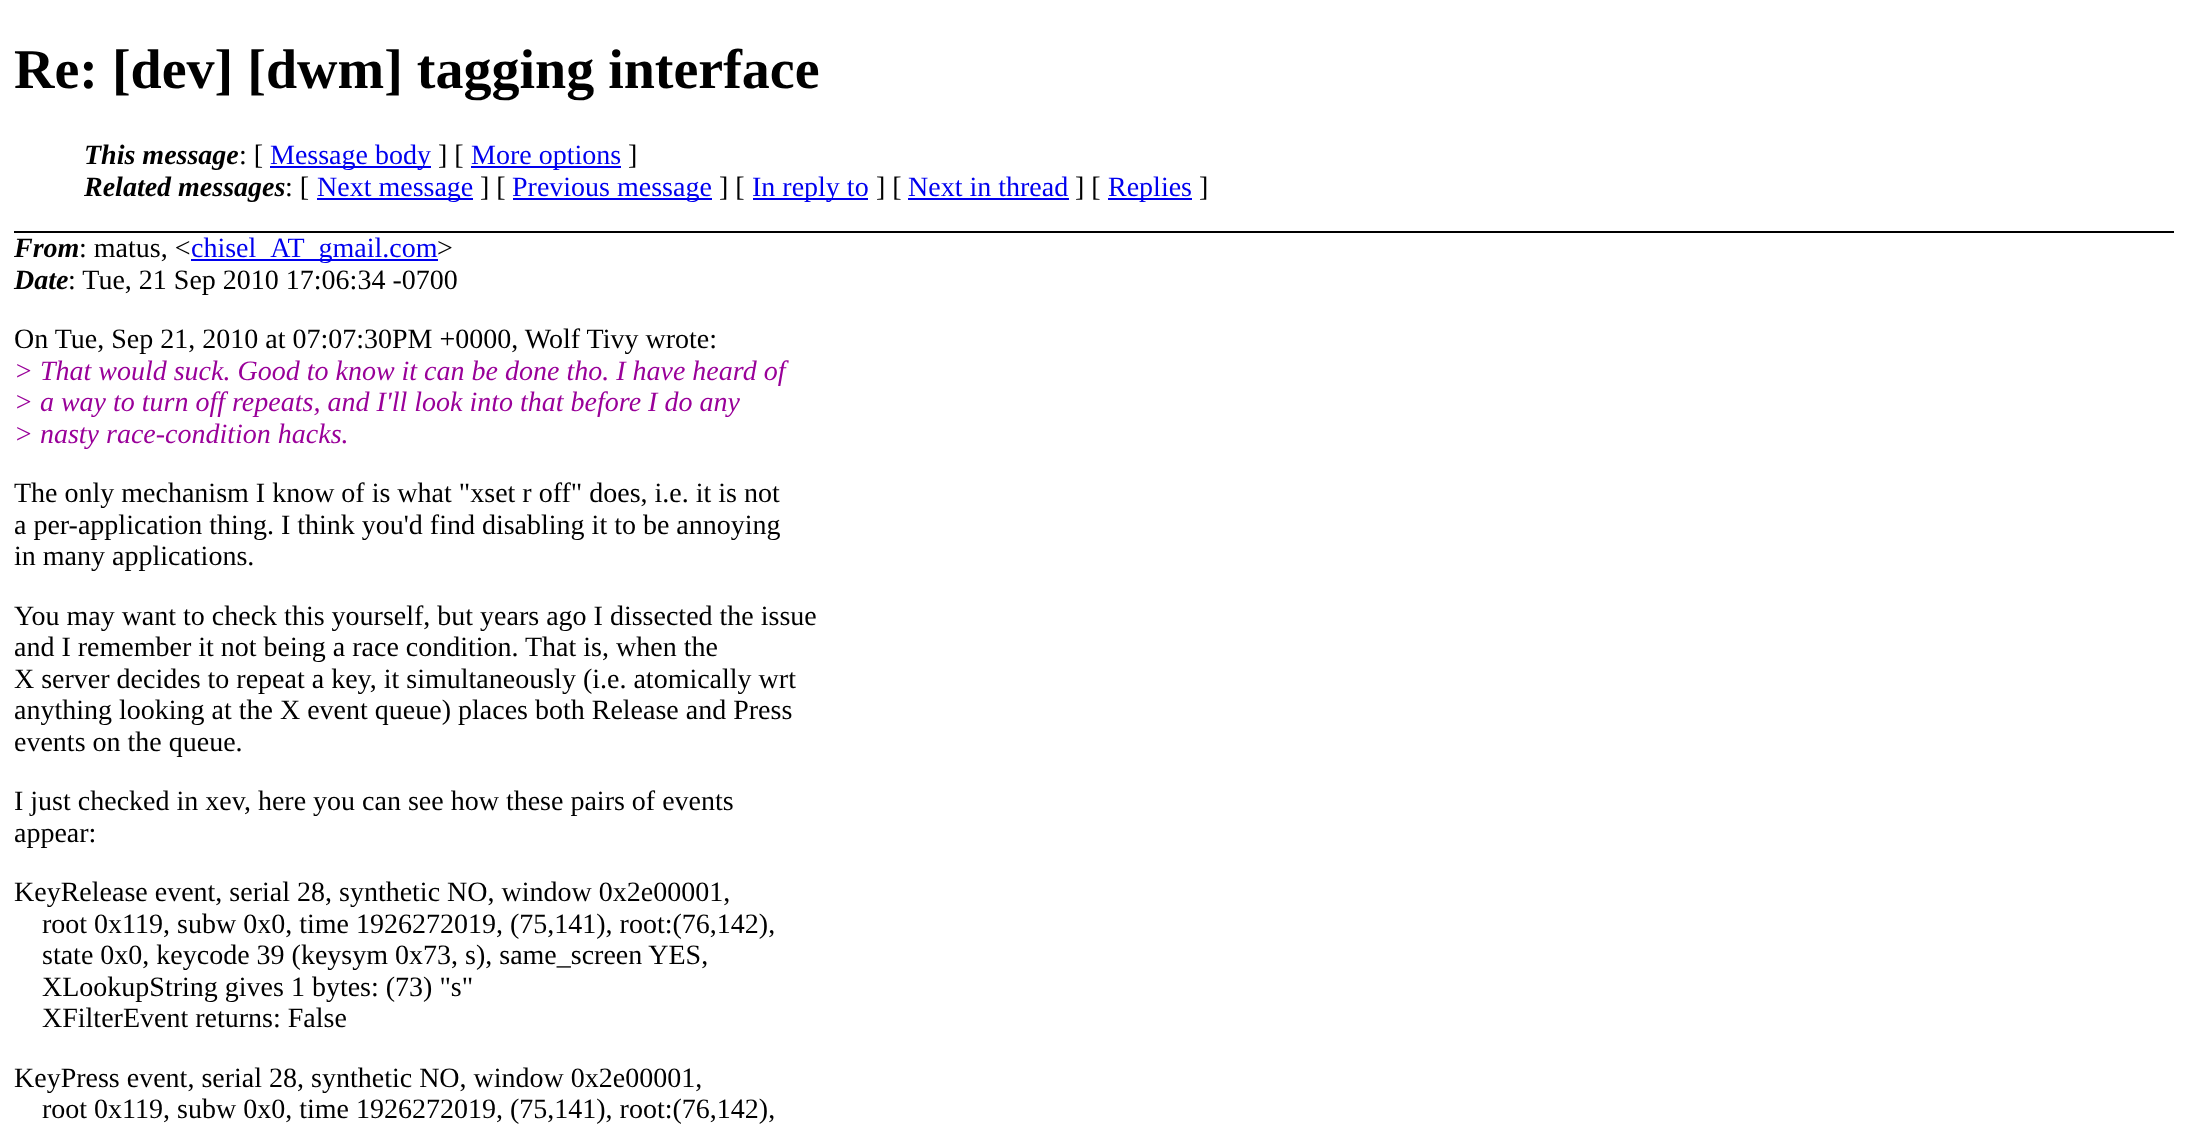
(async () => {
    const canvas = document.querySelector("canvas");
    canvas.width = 2186;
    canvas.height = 1134;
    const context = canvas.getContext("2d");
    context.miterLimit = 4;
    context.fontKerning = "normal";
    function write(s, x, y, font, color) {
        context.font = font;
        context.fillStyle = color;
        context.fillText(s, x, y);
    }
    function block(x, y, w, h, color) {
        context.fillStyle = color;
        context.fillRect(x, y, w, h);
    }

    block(0, 0, 2186, 1134, "rgb(255, 255, 255)");
    block(14, 231, 2160, 2, "rgb(0, 0, 0)");
    write("Re: [dev] [dwm] tagging interface", 14, 88, "bold 56px Liberation Serif", "rgb(0, 0, 0)");
    write("This message", 84, 164, "italic bold 28px Liberation Serif", "rgb(0, 0, 0)");
    write(": [", 239, 164, "28px Liberation Serif", "rgb(0, 0, 0)");
    block(270, 166, 161, 2, "rgb(0, 0, 238)");
    write("Message body", 270, 164, "28px Liberation Serif", "rgb(0, 0, 238)");
    write("] [", 438, 164, "28px Liberation Serif", "rgb(0, 0, 0)");
    block(471, 166, 150, 2, "rgb(0, 0, 238)");
    write("More options", 471, 164, "28px Liberation Serif", "rgb(0, 0, 238)");
    write("]", 628, 164, "28px Liberation Serif", "rgb(0, 0, 0)");
    write("Related messages", 84, 196, "italic bold 28px Liberation Serif", "rgb(0, 0, 0)");
    write(": [", 285, 196, "28px Liberation Serif", "rgb(0, 0, 0)");
    block(317, 198, 156, 2, "rgb(0, 0, 238)");
    write("Next message", 317, 196, "28px Liberation Serif", "rgb(0, 0, 238)");
    write("] [", 480, 196, "28px Liberation Serif", "rgb(0, 0, 0)");
    block(513, 198, 199, 2, "rgb(0, 0, 238)");
    write("Previous message", 512, 196, "28px Liberation Serif", "rgb(0, 0, 238)");
    write("] [", 719, 196, "28px Liberation Serif", "rgb(0, 0, 0)");
    block(753, 198, 115, 2, "rgb(0, 0, 238)");
    write("In reply to", 752, 196, "28px Liberation Serif", "rgb(0, 0, 238)");
    write("] [", 876, 196, "28px Liberation Serif", "rgb(0, 0, 0)");
    write("Next in thread", 908, 196, "28px Liberation Serif", "rgb(0, 0, 238)");
    block(908, 198, 161, 2, "rgb(0, 0, 238)");
    write("] [", 1075, 196, "28px Liberation Serif", "rgb(0, 0, 0)");
    block(1108, 198, 84, 2, "rgb(0, 0, 238)");
    write("Replies", 1108, 196, "28px Liberation Serif", "rgb(0, 0, 238)");
    write("]", 1199, 196, "28px Liberation Serif", "rgb(0, 0, 0)");
    write("From", 14, 257, "italic bold 28px Liberation Serif", "rgb(0, 0, 0)");
    write(": matus, <", 79, 257, "28px Liberation Serif", "rgb(0, 0, 0)");
    block(191, 259, 247, 2, "rgb(0, 0, 238)");
    write("chisel_AT_gmail.com", 191, 257, "28px Liberation Serif", "rgb(0, 0, 238)");
    write(">", 437, 257, "28px Liberation Serif", "rgb(0, 0, 0)");
    write("Date", 14, 289, "italic bold 28px Liberation Serif", "rgb(0, 0, 0)");
    write(": Tue, 21 Sep 2010 17:06:34 -0700", 68, 289, "28px Liberation Serif", "rgb(0, 0, 0)");
    write("On Tue, Sep 21, 2010 at 07:07:30PM +0000, Wolf Tivy wrote:", 14, 348, "28px Liberation Serif", "rgb(0, 0, 0)");
    write("> That would suck. Good to know it can be done tho. I have heard of", 14, 380, "italic 28px Liberation Serif", "rgb(153, 0, 153)");
    write("> a way to turn off repeats, and I'll look into that before I do any", 14, 411, "italic 28px Liberation Serif", "rgb(153, 0, 153)");
    write("> nasty race-condition hacks.", 14, 443, "italic 28px Liberation Serif", "rgb(153, 0, 153)");
    write("The only mechanism I know of is what \"xset r off\" does, i.e. it is not", 14, 502, "28px Liberation Serif", "rgb(0, 0, 0)");
    write("a per-application thing. I think you'd find disabling it to be annoying", 14, 534, "28px Liberation Serif", "rgb(0, 0, 0)");
    write("in many applications.", 14, 565, "28px Liberation Serif", "rgb(0, 0, 0)");
    write("You may want to check this yourself, but years ago I dissected the issue", 14, 625, "28px Liberation Serif", "rgb(0, 0, 0)");
    write("and I remember it not being a race condition.", 14, 656, "28px Liberation Serif", "rgb(0, 0, 0)");
    write("That is, when the", 525, 656, "28px Liberation Serif", "rgb(0, 0, 0)");
    write("X server decides to repeat a key, it simultaneously (i.e. atomically wrt", 14, 688, "28px Liberation Serif", "rgb(0, 0, 0)");
    write("anything looking at the X event queue) places both Release and Press", 14, 719, "28px Liberation Serif", "rgb(0, 0, 0)");
    write("events on the queue.", 14, 751, "28px Liberation Serif", "rgb(0, 0, 0)");
    write("I just checked in xev, here you can see how these pairs of events", 14, 810, "28px Liberation Serif", "rgb(0, 0, 0)");
    write("appear:", 14, 842, "28px Liberation Serif", "rgb(0, 0, 0)");
    write("KeyRelease event, serial 28, synthetic NO, window 0x2e00001,", 14, 901, "28px Liberation Serif", "rgb(0, 0, 0)");
    write("root 0x119, subw 0x0, time 1926272019, (75,141), root:(76,142),", 42, 933, "28px Liberation Serif", "rgb(0, 0, 0)");
    write("state 0x0, keycode 39 (keysym 0x73, s), same_screen YES,", 42, 964, "28px Liberation Serif", "rgb(0, 0, 0)");
    write("XLookupString gives 1 bytes: (73) \"s\"", 42, 996, "28px Liberation Serif", "rgb(0, 0, 0)");
    write("XFilterEvent returns: False", 42, 1027, "28px Liberation Serif", "rgb(0, 0, 0)");
    write("KeyPress event, serial 28, synthetic NO, window 0x2e00001,", 14, 1087, "28px Liberation Serif", "rgb(0, 0, 0)");
    write("root 0x119, subw 0x0, time 1926272019, (75,141), root:(76,142),", 42, 1118, "28px Liberation Serif", "rgb(0, 0, 0)");
})();
